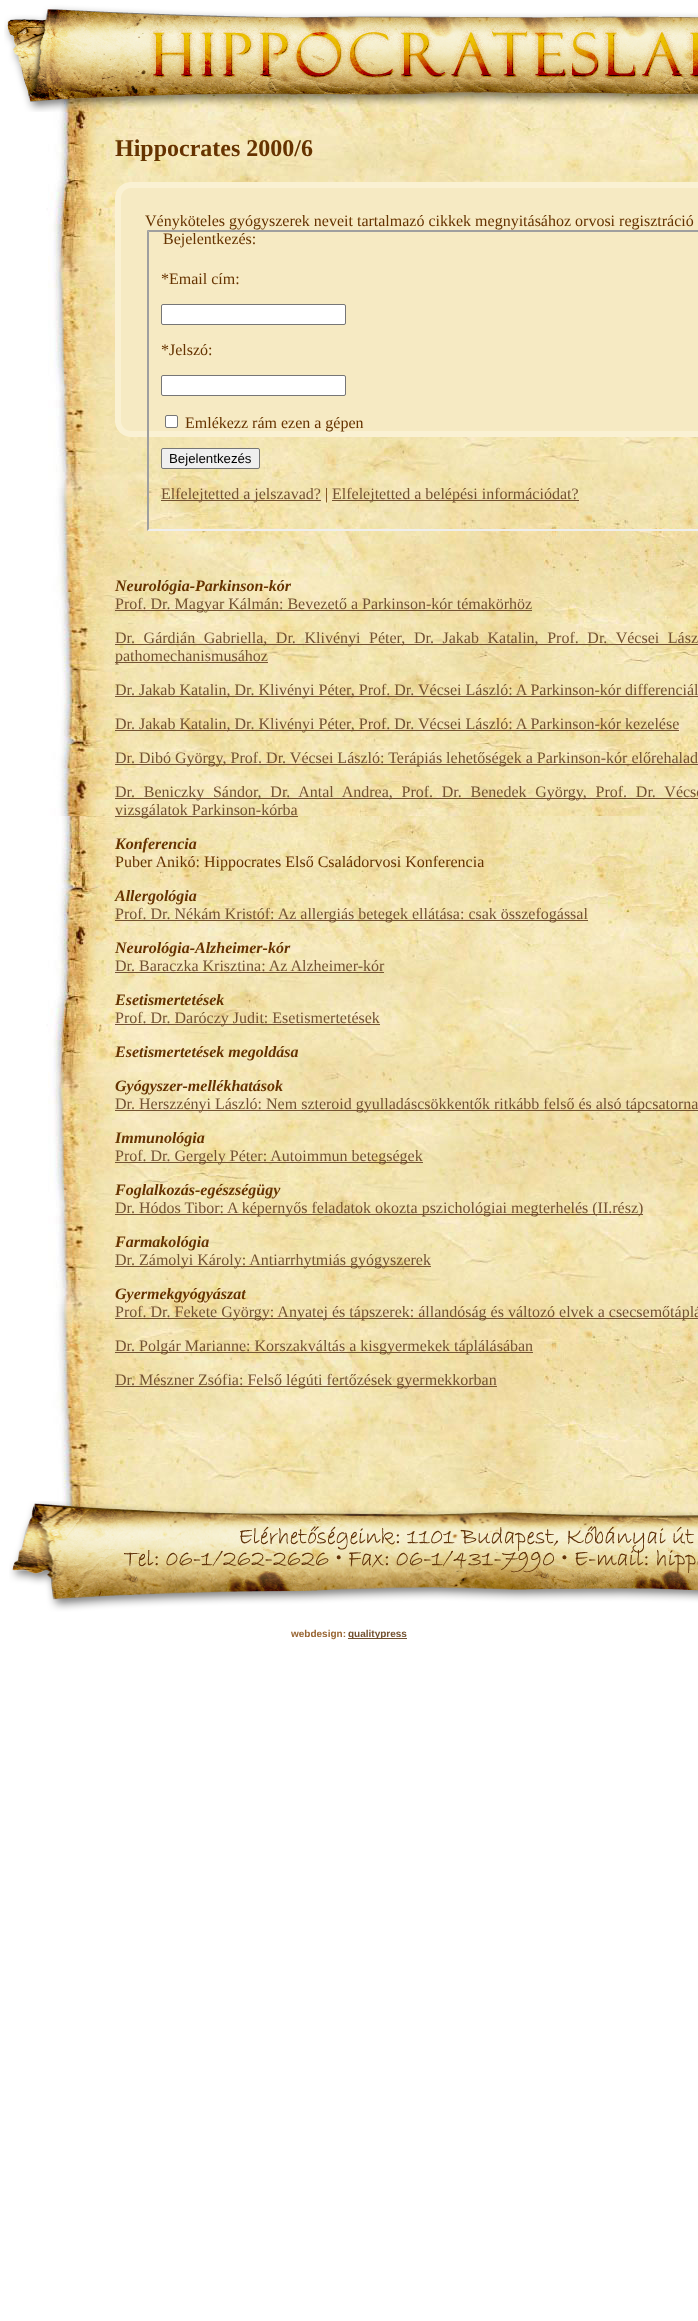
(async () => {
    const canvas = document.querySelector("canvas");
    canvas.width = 698;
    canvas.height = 2321;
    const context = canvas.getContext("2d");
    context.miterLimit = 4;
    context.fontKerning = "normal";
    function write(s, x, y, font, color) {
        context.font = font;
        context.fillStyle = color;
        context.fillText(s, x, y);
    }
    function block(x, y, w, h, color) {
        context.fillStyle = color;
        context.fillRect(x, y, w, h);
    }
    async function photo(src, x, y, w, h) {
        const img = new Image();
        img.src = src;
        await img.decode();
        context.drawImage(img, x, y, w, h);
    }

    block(0, 0, 698, 2321, "rgb(255, 255, 255)");
    await photo("media/1.png", 46, 92, 652, 1423);
    await photo("media/2.png", 4, 0, 694, 112);
    write("Hippocrates 2000/6", 115, 156, "bold 24px Liberation Serif", "rgb(102, 51, 0)");
    await photo("media/3.png", 115, 182, 583, 255);
    write("Vényköteles gyógyszerek neveit tartalmazó cikkek megnyitásához orvosi regisztráció", 145, 226, "16px Liberation Serif", "rgb(102, 51, 0)");
    context.fillStyle = "rgb(159, 159, 159)";
    context.beginPath();
    context.moveTo(147, 230);
    context.lineTo(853, 230);
    context.lineTo(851, 232);
    context.lineTo(149, 232);
    context.closePath();
    context.fill();
    context.fillStyle = "rgb(239, 239, 239)";
    context.beginPath();
    context.moveTo(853, 531);
    context.lineTo(147, 531);
    context.lineTo(149, 529);
    context.lineTo(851, 529);
    context.closePath();
    context.fill();
    context.fillStyle = "rgb(159, 159, 159)";
    context.beginPath();
    context.moveTo(147, 531);
    context.lineTo(147, 230);
    context.lineTo(149, 232);
    context.lineTo(149, 529);
    context.closePath();
    context.fill();
    write("Bejelentkezés:", 163, 244, "16px Liberation Serif", "rgb(102, 51, 0)");
    write("*Email cím:", 161, 284, "16px Liberation Serif", "rgb(102, 51, 0)");
    context.fillStyle = "rgb(255, 255, 255)";
    context.beginPath();
    context.roundRect(161.5, 304.5, 184, 20, 1.5);
    context.fill();
    context.strokeStyle = "rgb(118, 118, 118)";
    context.stroke();
    write("*Jelszó:", 161, 355, "16px Liberation Serif", "rgb(102, 51, 0)");
    context.fillStyle = "rgb(255, 255, 255)";
    context.beginPath();
    context.roundRect(161.5, 375.5, 184, 20, 1.5);
    context.fill();
    context.stroke();
    context.beginPath();
    context.roundRect(165.5, 415.5, 12, 12, 1.5);
    context.fill();
    context.stroke();
    write("Emlékezz rám ezen a gépen", 185, 428, "16px Liberation Serif", "rgb(102, 51, 0)");
    context.fillStyle = "rgb(239, 239, 239)";
    context.beginPath();
    context.roundRect(161.5, 448.5, 98, 20, 1.5);
    context.fill();
    context.stroke();
    write("Bejelentkezés", 169, 463, "13.25px Liberation Sans", "rgb(0, 0, 0)");
    block(161, 500, 160, 1, "rgb(116, 83, 50)");
    write("Elfelejtetted a jelszavad?", 161, 499, "16px Liberation Serif", "rgb(116, 83, 50)");
    write("|", 325, 499, "16px Liberation Serif", "rgb(102, 51, 0)");
    block(332, 500, 247, 1, "rgb(116, 83, 50)");
    write("Elfelejtetted a belépési információdat?", 332, 499, "16px Liberation Serif", "rgb(116, 83, 50)");
    write("Neurológia-Parkinson-kór", 115, 591, "italic bold 16px Liberation Serif", "rgb(102, 51, 0)");
    block(115, 610, 417, 1, "rgb(116, 83, 50)");
    write("Prof. Dr. Magyar Kálmán: Bevezető a Parkinson-kór témakörhöz", 115, 609, "16px Liberation Serif", "rgb(116, 83, 50)");
    block(115, 644, 583, 1, "rgb(116, 83, 50)");
    context.wordSpacing = "4.6px";
    write("Dr. Gárdián Gabriella, Dr. Klivényi Péter, Dr. Jakab Katalin, Prof. Dr. Vécsei Lász", 115, 643, "16px Liberation Serif", "rgb(116, 83, 50)");
    block(115, 662, 153, 1, "rgb(116, 83, 50)");
    context.wordSpacing = "0px";
    write("pathomechanismusához", 115, 661, "16px Liberation Serif", "rgb(116, 83, 50)");
    block(115, 696, 583, 1, "rgb(116, 83, 50)");
    write("Dr. Jakab Katalin, Dr. Klivényi Péter, Prof. Dr. Vécsei László: A Parkinson-kór differenciál", 115, 695, "16px Liberation Serif", "rgb(116, 83, 50)");
    block(115, 730, 564, 1, "rgb(116, 83, 50)");
    write("Dr. Jakab Katalin, Dr. Klivényi Péter, Prof. Dr. Vécsei László: A Parkinson-kór kezelése", 115, 729, "16px Liberation Serif", "rgb(116, 83, 50)");
    block(115, 764, 583, 1, "rgb(116, 83, 50)");
    write("Dr. Dibó György, Prof. Dr. Vécsei László: Terápiás lehetőségek a Parkinson-kór előrehalad", 115, 763, "16px Liberation Serif", "rgb(116, 83, 50)");
    block(115, 798, 583, 1, "rgb(116, 83, 50)");
    context.wordSpacing = "4.75px";
    write("Dr. Beniczky Sándor, Dr. Antal Andrea, Prof. Dr. Benedek György, Prof. Dr. Vécse", 115, 797, "16px Liberation Serif", "rgb(116, 83, 50)");
    block(115, 816, 183, 1, "rgb(116, 83, 50)");
    context.wordSpacing = "0px";
    write("vizsgálatok Parkinson-kórba", 115, 815, "16px Liberation Serif", "rgb(116, 83, 50)");
    write("Konferencia", 115, 849, "italic bold 16px Liberation Serif", "rgb(102, 51, 0)");
    write("Puber Anikó: Hippocrates Első Családorvosi Konferencia", 115, 867, "16px Liberation Serif", "rgb(102, 51, 0)");
    write("Allergológia", 115, 901, "italic bold 16px Liberation Serif", "rgb(102, 51, 0)");
    block(115, 920, 473, 1, "rgb(116, 83, 50)");
    write("Prof. Dr. Nékám Kristóf: Az allergiás betegek ellátása: csak összefogással", 115, 919, "16px Liberation Serif", "rgb(116, 83, 50)");
    write("Neurológia-Alzheimer-kór", 115, 953, "italic bold 16px Liberation Serif", "rgb(102, 51, 0)");
    write("Dr. Baraczka Krisztina: Az Alzheimer-kór", 115, 971, "16px Liberation Serif", "rgb(116, 83, 50)");
    block(115, 972, 269, 1, "rgb(116, 83, 50)");
    write("Esetismertetések", 115, 1005, "italic bold 16px Liberation Serif", "rgb(102, 51, 0)");
    block(115, 1024, 265, 1, "rgb(116, 83, 50)");
    write("Prof. Dr. Daróczy Judit: Esetismertetések", 115, 1023, "16px Liberation Serif", "rgb(116, 83, 50)");
    write("Esetismertetések megoldása", 115, 1057, "italic bold 16px Liberation Serif", "rgb(102, 51, 0)");
    write("Gyógyszer-mellékhatások", 115, 1091, "italic bold 16px Liberation Serif", "rgb(102, 51, 0)");
    block(115, 1110, 583, 1, "rgb(116, 83, 50)");
    write("Dr. Herszzényi László: Nem szteroid gyulladáscsökkentők ritkább felső és alsó tápcsatorna", 115, 1109, "16px Liberation Serif", "rgb(116, 83, 50)");
    write("Immunológia", 115, 1143, "italic bold 16px Liberation Serif", "rgb(102, 51, 0)");
    block(115, 1162, 308, 1, "rgb(116, 83, 50)");
    write("Prof. Dr. Gergely Péter: Autoimmun betegségek", 115, 1161, "16px Liberation Serif", "rgb(116, 83, 50)");
    write("Foglalkozás-egészségügy", 115, 1195, "italic bold 16px Liberation Serif", "rgb(102, 51, 0)");
    block(115, 1214, 528, 1, "rgb(116, 83, 50)");
    write("Dr. Hódos Tibor: A képernyős feladatok okozta pszichológiai megterhelés (II.rész)", 115, 1213, "16px Liberation Serif", "rgb(116, 83, 50)");
    write("Farmakológia", 115, 1247, "italic bold 16px Liberation Serif", "rgb(102, 51, 0)");
    block(115, 1266, 316, 1, "rgb(116, 83, 50)");
    write("Dr. Zámolyi Károly: Antiarrhytmiás gyógyszerek", 115, 1265, "16px Liberation Serif", "rgb(116, 83, 50)");
    write("Gyermekgyógyászat", 115, 1299, "italic bold 16px Liberation Serif", "rgb(102, 51, 0)");
    block(115, 1318, 583, 1, "rgb(116, 83, 50)");
    write("Prof. Dr. Fekete György: Anyatej és tápszerek: állandóság és változó elvek a csecsemőtáplá", 115, 1317, "16px Liberation Serif", "rgb(116, 83, 50)");
    block(115, 1352, 418, 1, "rgb(116, 83, 50)");
    write("Dr. Polgár Marianne: Korszakváltás a kisgyermekek táplálásában", 115, 1351, "16px Liberation Serif", "rgb(116, 83, 50)");
    block(115, 1386, 382, 1, "rgb(116, 83, 50)");
    write("Dr. Mészner Zsófia: Felső légúti fertőzések gyermekkorban", 115, 1385, "16px Liberation Serif", "rgb(116, 83, 50)");
    await photo("media/4.png", 9, 1501, 689, 111);
    write("webdesign:", 291, 1637, "bold 10px Liberation Sans", "rgb(153, 102, 51)");
    block(348, 1638, 59, 1, "rgb(116, 83, 50)");
    write("qualitypress", 348, 1637, "bold 10px Liberation Sans", "rgb(116, 83, 50)");
})();
